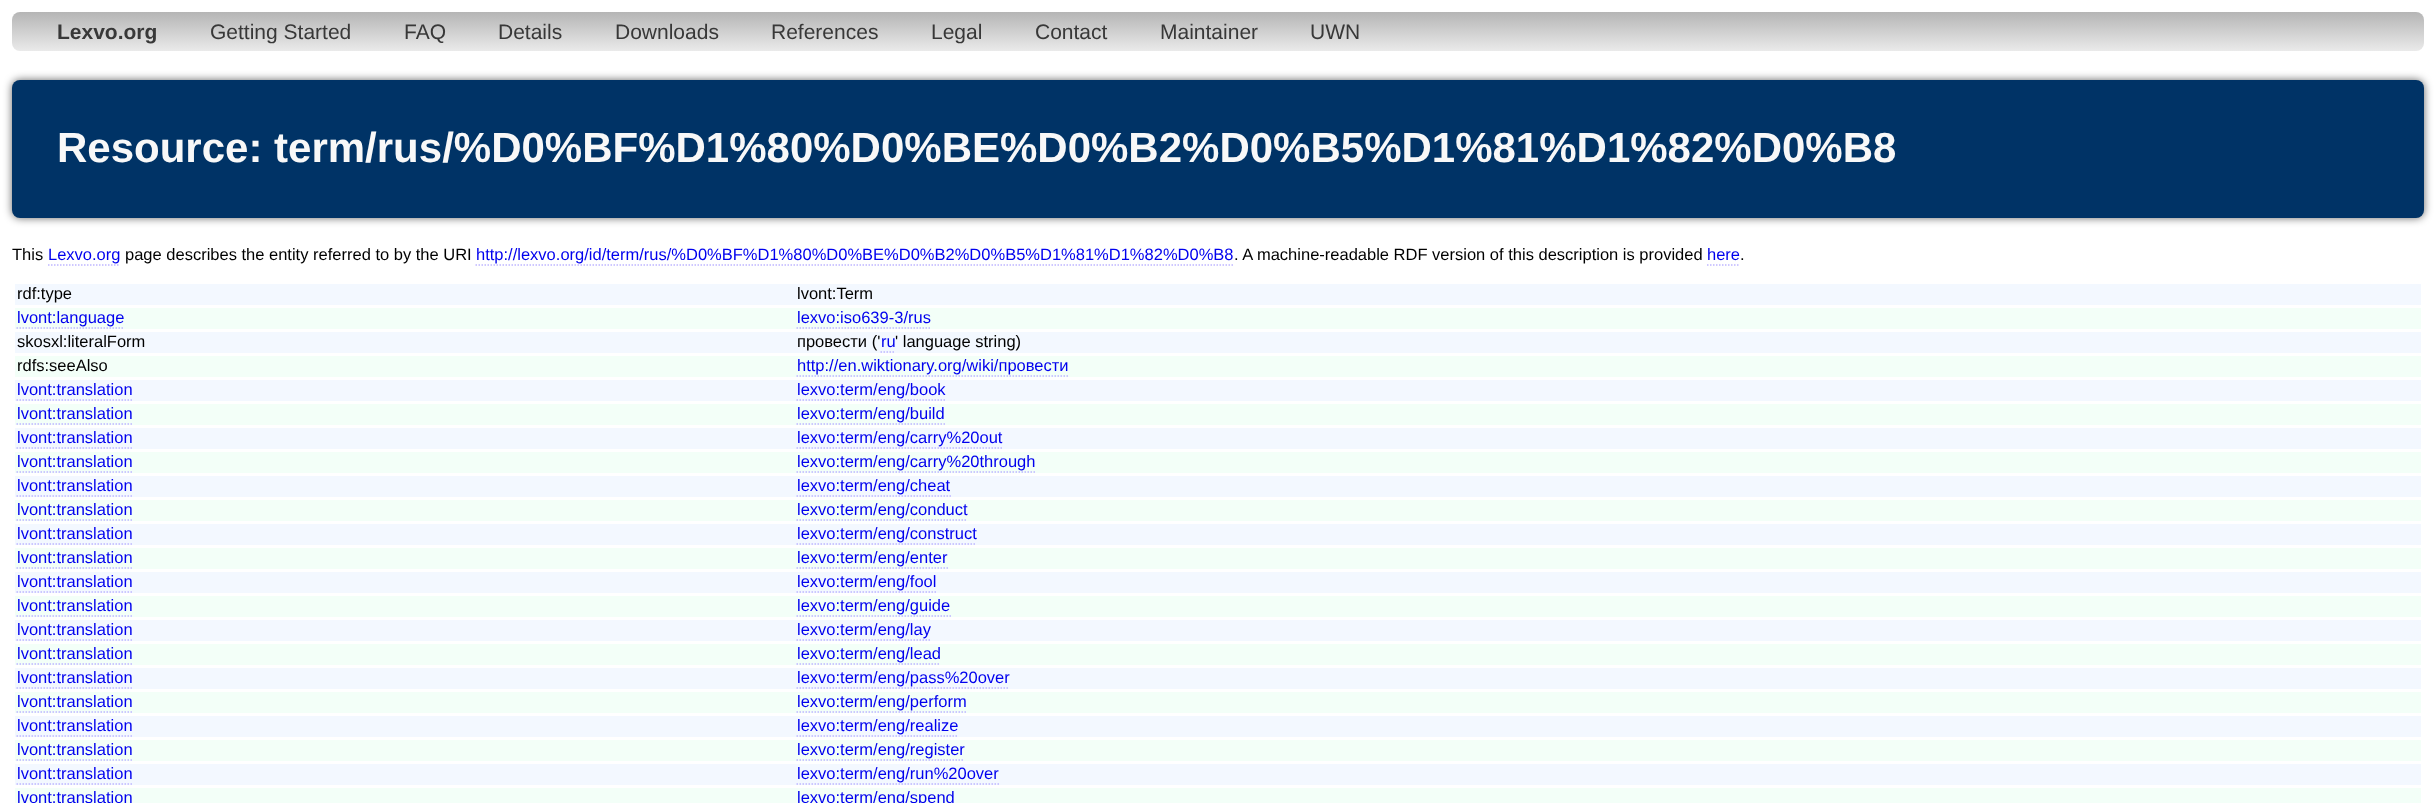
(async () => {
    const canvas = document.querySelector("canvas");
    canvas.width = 2435;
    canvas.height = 803;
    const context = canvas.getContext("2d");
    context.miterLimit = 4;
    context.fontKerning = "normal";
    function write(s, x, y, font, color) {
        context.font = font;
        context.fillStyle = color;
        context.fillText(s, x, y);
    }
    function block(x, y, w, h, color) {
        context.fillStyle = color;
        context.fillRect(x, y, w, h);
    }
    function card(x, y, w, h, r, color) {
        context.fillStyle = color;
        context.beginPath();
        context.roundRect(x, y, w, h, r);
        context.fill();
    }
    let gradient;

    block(0, 0, 2435, 803, "rgb(255, 255, 255)");
    gradient = context.createLinearGradient(1218, 12, 1218, 51);
    gradient.addColorStop(0, "rgb(181, 181, 181)");
    gradient.addColorStop(1, "rgb(234, 234, 234)");
    context.fillStyle = gradient;
    context.beginPath();
    context.roundRect(12, 12, 2412, 39, 8);
    context.fill();
    write("Lexvo.org", 57, 39, "bold 21px Liberation Sans", "rgb(56, 56, 56)");
    write("Getting Started", 210, 39, "21px Liberation Sans", "rgb(56, 56, 56)");
    write("FAQ", 404, 39, "21px Liberation Sans", "rgb(56, 56, 56)");
    write("Details", 498, 39, "21px Liberation Sans", "rgb(56, 56, 56)");
    write("Downloads", 615, 39, "21px Liberation Sans", "rgb(56, 56, 56)");
    write("References", 771, 39, "21px Liberation Sans", "rgb(56, 56, 56)");
    write("Legal", 931, 39, "21px Liberation Sans", "rgb(56, 56, 56)");
    write("Contact", 1035, 39, "21px Liberation Sans", "rgb(56, 56, 56)");
    write("Maintainer", 1160, 39, "21px Liberation Sans", "rgb(56, 56, 56)");
    write("UWN", 1310, 39, "21px Liberation Sans", "rgb(56, 56, 56)");
    context.fillStyle = "rgba(0, 0, 0, 0.6)";
    context.filter = "blur(4.5px)";
    context.beginPath();
    context.roundRect(12, 80, 2412, 138, 8);
    context.fill();
    context.filter = "none";
    card(12, 80, 2412, 138, 8, "rgb(0, 51, 102)");
    write("Resource: term/rus/%D0%BF%D1%80%D0%BE%D0%B2%D0%B5%D1%81%D1%82%D0%B8", 57, 162, "bold 42px Liberation Sans", "rgb(248, 248, 248)");
    write("This", 12, 260, "16.5px Liberation Sans", "rgb(0, 0, 0)");
    write("Lexvo.org", 48, 260, "16.5px Liberation Sans", "rgb(0, 0, 238)");
    context.beginPath();
    context.moveTo(48, 265);
    context.lineTo(120, 265);
    context.strokeStyle = "rgb(191, 182, 255)";
    context.lineWidth = 1.5;
    context.setLineDash([1.5, 1.5]);
    context.stroke();
    write("page describes the entity referred to by the URI", 125, 260, "16.5px Liberation Sans", "rgb(0, 0, 0)");
    write("http://lexvo.org/id/term/rus/%D0%BF%D1%80%D0%BE%D0%B2%D0%B5%D1%81%D1%82%D0%B8", 476, 260, "16.5px Liberation Sans", "rgb(0, 0, 238)");
    context.beginPath();
    context.moveTo(475.5, 265);
    context.lineTo(1233, 265);
    context.stroke();
    write(". A machine-readable RDF version of this description is provided", 1234, 260, "16.5px Liberation Sans", "rgb(0, 0, 0)");
    write("here", 1707, 260, "16.5px Liberation Sans", "rgb(0, 0, 238)");
    context.beginPath();
    context.moveTo(1707, 265);
    context.lineTo(1740, 265);
    context.stroke();
    write(".", 1740, 260, "16.5px Liberation Sans", "rgb(0, 0, 0)");
    block(15, 284, 2406, 21, "rgb(243, 248, 255)");
    write("rdf:type", 17, 299, "16.5px Liberation Sans", "rgb(0, 0, 0)");
    write("lvont:Term", 797, 299, "16.5px Liberation Sans", "rgb(0, 0, 0)");
    block(15, 308, 2406, 21, "rgb(243, 255, 248)");
    write("lvont:language", 17, 323, "16.5px Liberation Sans", "rgb(0, 0, 238)");
    context.beginPath();
    context.moveTo(16.5, 328);
    context.lineTo(124.5, 328);
    context.stroke();
    write("lexvo:iso639-3/rus", 797, 323, "16.5px Liberation Sans", "rgb(0, 0, 238)");
    context.beginPath();
    context.moveTo(796.5, 328);
    context.lineTo(931.5, 328);
    context.stroke();
    block(15, 332, 2406, 21, "rgb(243, 248, 255)");
    write("skosxl:literalForm", 17, 347, "16.5px Liberation Sans", "rgb(0, 0, 0)");
    write("провести ('", 797, 347, "16.5px Liberation Sans", "rgb(0, 0, 0)");
    write("ru", 881, 347, "16.5px Liberation Sans", "rgb(0, 0, 238)");
    context.beginPath();
    context.moveTo(880.5, 352);
    context.lineTo(895.5, 352);
    context.stroke();
    write("' language string)", 895, 347, "16.5px Liberation Sans", "rgb(0, 0, 0)");
    block(15, 356, 2406, 21, "rgb(243, 255, 248)");
    write("rdfs:seeAlso", 17, 371, "16.5px Liberation Sans", "rgb(0, 0, 0)");
    write("http://en.wiktionary.org/wiki/провести", 797, 371, "16.5px Liberation Sans", "rgb(0, 0, 238)");
    context.beginPath();
    context.moveTo(796.5, 376);
    context.lineTo(1069.5, 376);
    context.stroke();
    block(15, 380, 2406, 21, "rgb(243, 248, 255)");
    write("lvont:translation", 17, 395, "16.5px Liberation Sans", "rgb(0, 0, 238)");
    context.beginPath();
    context.moveTo(16.5, 400);
    context.lineTo(132, 400);
    context.stroke();
    write("lexvo:term/eng/book", 797, 395, "16.5px Liberation Sans", "rgb(0, 0, 238)");
    context.beginPath();
    context.moveTo(796.5, 400);
    context.lineTo(946.5, 400);
    context.stroke();
    block(15, 404, 2406, 21, "rgb(243, 255, 248)");
    write("lvont:translation", 17, 419, "16.5px Liberation Sans", "rgb(0, 0, 238)");
    context.beginPath();
    context.moveTo(16.5, 424);
    context.lineTo(132, 424);
    context.stroke();
    write("lexvo:term/eng/build", 797, 419, "16.5px Liberation Sans", "rgb(0, 0, 238)");
    context.beginPath();
    context.moveTo(796.5, 424);
    context.lineTo(945, 424);
    context.stroke();
    block(15, 428, 2406, 21, "rgb(243, 248, 255)");
    write("lvont:translation", 17, 443, "16.5px Liberation Sans", "rgb(0, 0, 238)");
    context.beginPath();
    context.moveTo(16.5, 448);
    context.lineTo(132, 448);
    context.stroke();
    write("lexvo:term/eng/carry%20out", 797, 443, "16.5px Liberation Sans", "rgb(0, 0, 238)");
    context.beginPath();
    context.moveTo(796.5, 448);
    context.lineTo(1002, 448);
    context.stroke();
    block(15, 452, 2406, 21, "rgb(243, 255, 248)");
    write("lvont:translation", 17, 467, "16.5px Liberation Sans", "rgb(0, 0, 238)");
    context.beginPath();
    context.moveTo(16.5, 472);
    context.lineTo(132, 472);
    context.stroke();
    write("lexvo:term/eng/carry%20through", 797, 467, "16.5px Liberation Sans", "rgb(0, 0, 238)");
    context.beginPath();
    context.moveTo(796.5, 472);
    context.lineTo(1035, 472);
    context.stroke();
    block(15, 476, 2406, 21, "rgb(243, 248, 255)");
    write("lvont:translation", 17, 491, "16.5px Liberation Sans", "rgb(0, 0, 238)");
    context.beginPath();
    context.moveTo(16.5, 496);
    context.lineTo(132, 496);
    context.stroke();
    write("lexvo:term/eng/cheat", 797, 491, "16.5px Liberation Sans", "rgb(0, 0, 238)");
    context.beginPath();
    context.moveTo(796.5, 496);
    context.lineTo(951, 496);
    context.stroke();
    block(15, 500, 2406, 21, "rgb(243, 255, 248)");
    write("lvont:translation", 17, 515, "16.5px Liberation Sans", "rgb(0, 0, 238)");
    context.beginPath();
    context.moveTo(16.5, 520);
    context.lineTo(132, 520);
    context.stroke();
    write("lexvo:term/eng/conduct", 797, 515, "16.5px Liberation Sans", "rgb(0, 0, 238)");
    context.beginPath();
    context.moveTo(796.5, 520);
    context.lineTo(967.5, 520);
    context.stroke();
    block(15, 524, 2406, 21, "rgb(243, 248, 255)");
    write("lvont:translation", 17, 539, "16.5px Liberation Sans", "rgb(0, 0, 238)");
    context.beginPath();
    context.moveTo(16.5, 544);
    context.lineTo(132, 544);
    context.stroke();
    write("lexvo:term/eng/construct", 797, 539, "16.5px Liberation Sans", "rgb(0, 0, 238)");
    context.beginPath();
    context.moveTo(796.5, 544);
    context.lineTo(976.5, 544);
    context.stroke();
    block(15, 548, 2406, 21, "rgb(243, 255, 248)");
    write("lvont:translation", 17, 563, "16.5px Liberation Sans", "rgb(0, 0, 238)");
    context.beginPath();
    context.moveTo(16.5, 568);
    context.lineTo(132, 568);
    context.stroke();
    write("lexvo:term/eng/enter", 797, 563, "16.5px Liberation Sans", "rgb(0, 0, 238)");
    context.beginPath();
    context.moveTo(796.5, 568);
    context.lineTo(948, 568);
    context.stroke();
    block(15, 572, 2406, 21, "rgb(243, 248, 255)");
    write("lvont:translation", 17, 587, "16.5px Liberation Sans", "rgb(0, 0, 238)");
    context.beginPath();
    context.moveTo(16.5, 592);
    context.lineTo(132, 592);
    context.stroke();
    write("lexvo:term/eng/fool", 797, 587, "16.5px Liberation Sans", "rgb(0, 0, 238)");
    context.beginPath();
    context.moveTo(796.5, 592);
    context.lineTo(936, 592);
    context.stroke();
    block(15, 596, 2406, 21, "rgb(243, 255, 248)");
    write("lvont:translation", 17, 611, "16.5px Liberation Sans", "rgb(0, 0, 238)");
    context.beginPath();
    context.moveTo(16.5, 616);
    context.lineTo(132, 616);
    context.stroke();
    write("lexvo:term/eng/guide", 797, 611, "16.5px Liberation Sans", "rgb(0, 0, 238)");
    context.beginPath();
    context.moveTo(796.5, 616);
    context.lineTo(951, 616);
    context.stroke();
    block(15, 620, 2406, 21, "rgb(243, 248, 255)");
    write("lvont:translation", 17, 635, "16.5px Liberation Sans", "rgb(0, 0, 238)");
    context.beginPath();
    context.moveTo(16.5, 640);
    context.lineTo(132, 640);
    context.stroke();
    write("lexvo:term/eng/lay", 797, 635, "16.5px Liberation Sans", "rgb(0, 0, 238)");
    context.beginPath();
    context.moveTo(796.5, 640);
    context.lineTo(931.5, 640);
    context.stroke();
    block(15, 644, 2406, 21, "rgb(243, 255, 248)");
    write("lvont:translation", 17, 659, "16.5px Liberation Sans", "rgb(0, 0, 238)");
    context.beginPath();
    context.moveTo(16.5, 664);
    context.lineTo(132, 664);
    context.stroke();
    write("lexvo:term/eng/lead", 797, 659, "16.5px Liberation Sans", "rgb(0, 0, 238)");
    context.beginPath();
    context.moveTo(796.5, 664);
    context.lineTo(940.5, 664);
    context.stroke();
    block(15, 668, 2406, 21, "rgb(243, 248, 255)");
    write("lvont:translation", 17, 683, "16.5px Liberation Sans", "rgb(0, 0, 238)");
    context.beginPath();
    context.moveTo(16.5, 688);
    context.lineTo(132, 688);
    context.stroke();
    write("lexvo:term/eng/pass%20over", 797, 683, "16.5px Liberation Sans", "rgb(0, 0, 238)");
    context.beginPath();
    context.moveTo(796.5, 688);
    context.lineTo(1009.5, 688);
    context.stroke();
    block(15, 692, 2406, 21, "rgb(243, 255, 248)");
    write("lvont:translation", 17, 707, "16.5px Liberation Sans", "rgb(0, 0, 238)");
    context.beginPath();
    context.moveTo(16.5, 712);
    context.lineTo(132, 712);
    context.stroke();
    write("lexvo:term/eng/perform", 797, 707, "16.5px Liberation Sans", "rgb(0, 0, 238)");
    context.beginPath();
    context.moveTo(796.5, 712);
    context.lineTo(967.5, 712);
    context.stroke();
    block(15, 716, 2406, 21, "rgb(243, 248, 255)");
    write("lvont:translation", 17, 731, "16.5px Liberation Sans", "rgb(0, 0, 238)");
    context.beginPath();
    context.moveTo(16.5, 736);
    context.lineTo(132, 736);
    context.stroke();
    write("lexvo:term/eng/realize", 797, 731, "16.5px Liberation Sans", "rgb(0, 0, 238)");
    context.beginPath();
    context.moveTo(796.5, 736);
    context.lineTo(958.5, 736);
    context.stroke();
    block(15, 740, 2406, 21, "rgb(243, 255, 248)");
    write("lvont:translation", 17, 755, "16.5px Liberation Sans", "rgb(0, 0, 238)");
    context.beginPath();
    context.moveTo(16.5, 760);
    context.lineTo(132, 760);
    context.stroke();
    write("lexvo:term/eng/register", 797, 755, "16.5px Liberation Sans", "rgb(0, 0, 238)");
    context.beginPath();
    context.moveTo(796.5, 760);
    context.lineTo(964.5, 760);
    context.stroke();
    block(15, 764, 2406, 21, "rgb(243, 248, 255)");
    write("lvont:translation", 17, 779, "16.5px Liberation Sans", "rgb(0, 0, 238)");
    context.beginPath();
    context.moveTo(16.5, 784);
    context.lineTo(132, 784);
    context.stroke();
    write("lexvo:term/eng/run%20over", 797, 779, "16.5px Liberation Sans", "rgb(0, 0, 238)");
    context.beginPath();
    context.moveTo(796.5, 784);
    context.lineTo(999, 784);
    context.stroke();
    block(15, 788, 2406, 15, "rgb(243, 255, 248)");
    write("lvont:translation", 17, 803, "16.5px Liberation Sans", "rgb(0, 0, 238)");
    write("lexvo:term/eng/spend", 797, 803, "16.5px Liberation Sans", "rgb(0, 0, 238)");
})();
